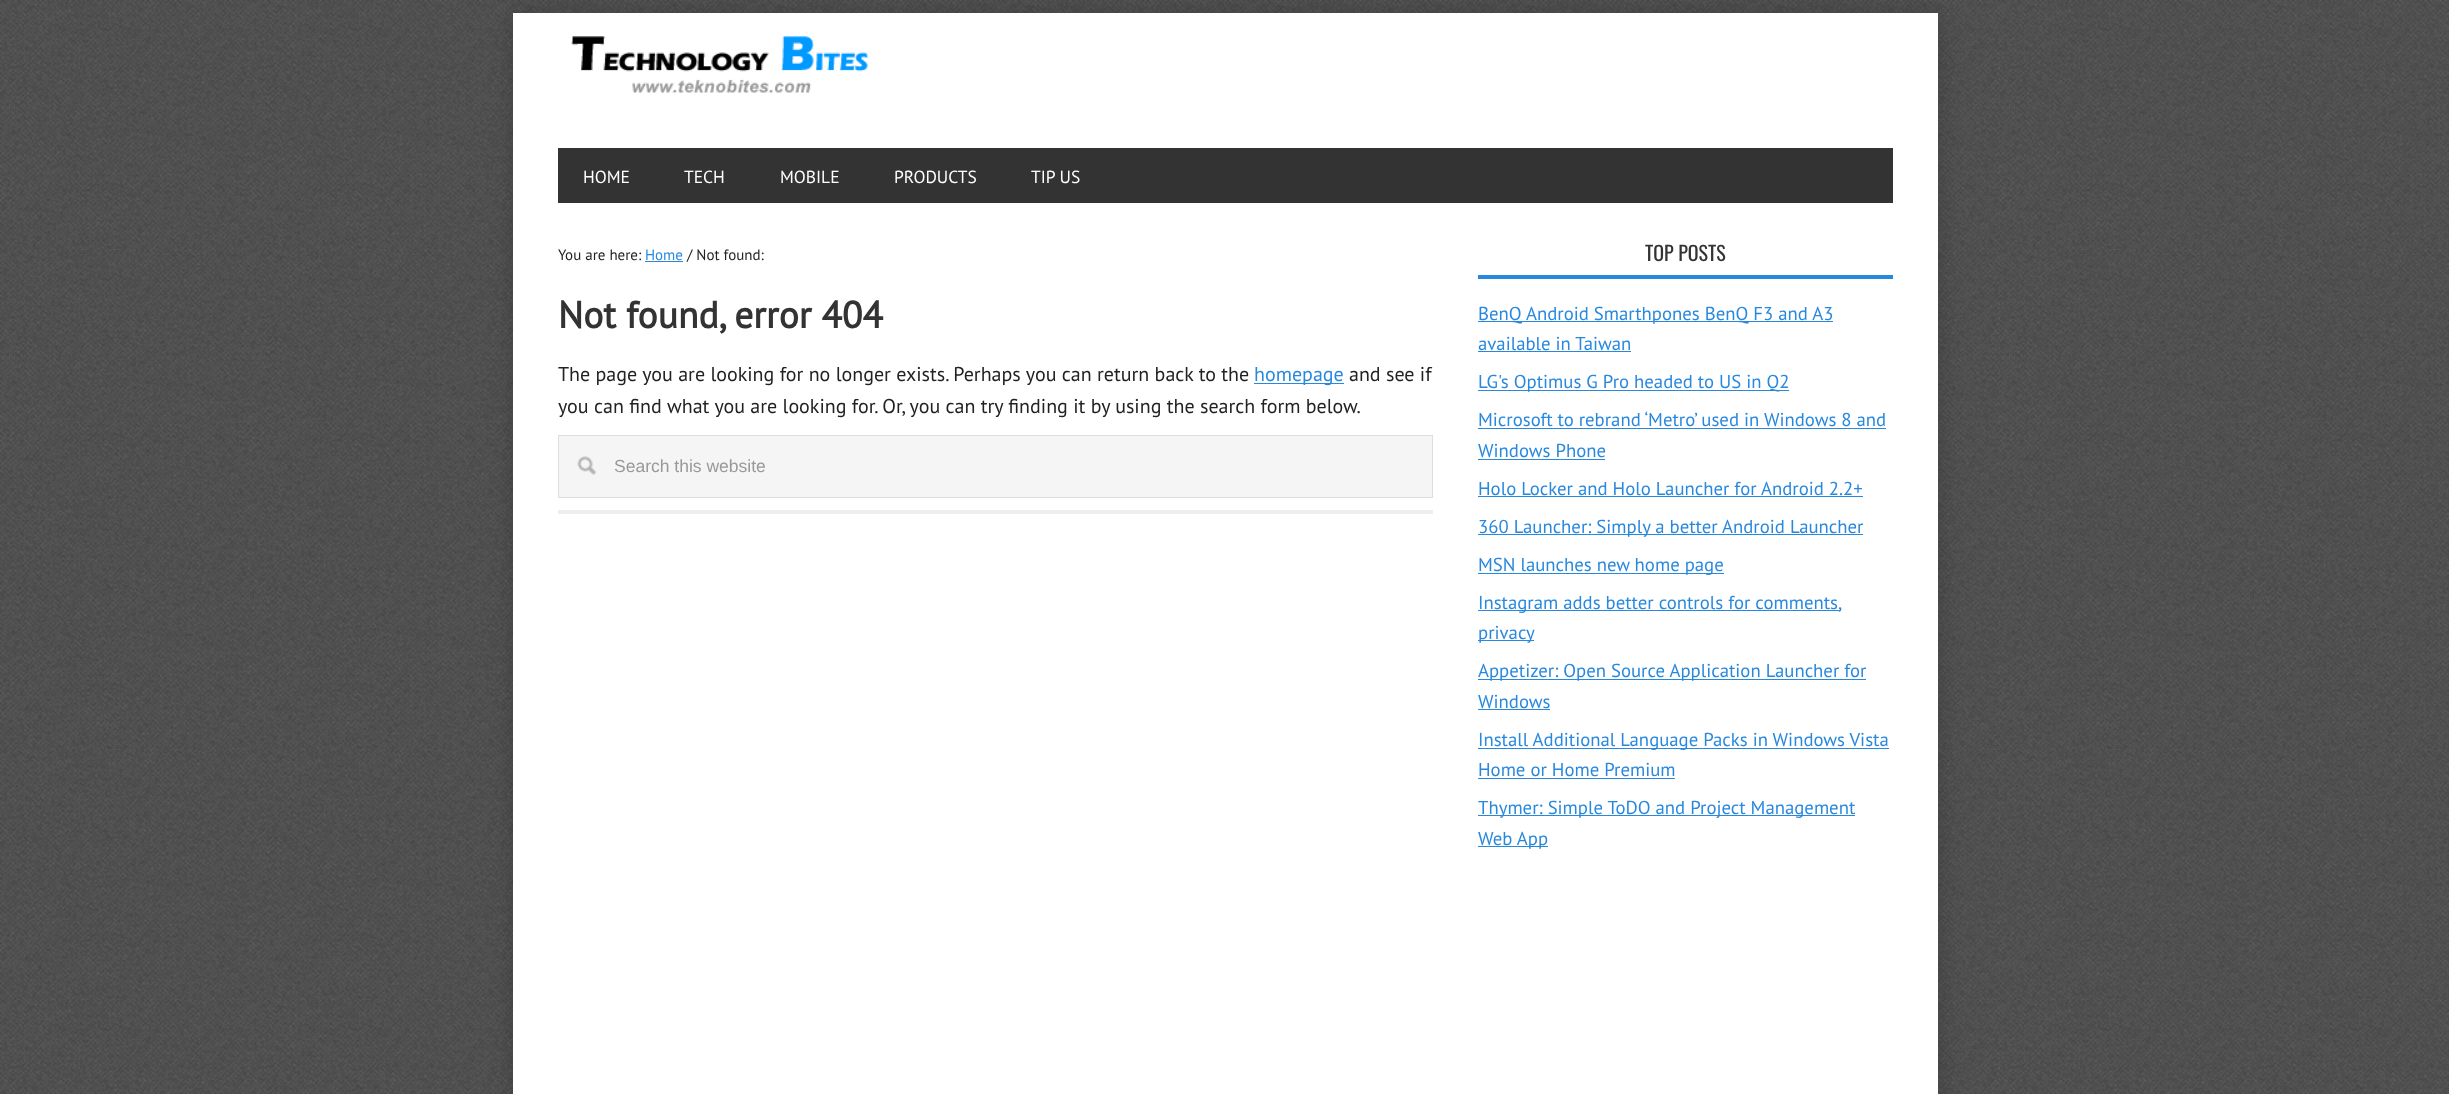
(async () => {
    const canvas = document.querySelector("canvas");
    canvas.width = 2449;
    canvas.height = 1094;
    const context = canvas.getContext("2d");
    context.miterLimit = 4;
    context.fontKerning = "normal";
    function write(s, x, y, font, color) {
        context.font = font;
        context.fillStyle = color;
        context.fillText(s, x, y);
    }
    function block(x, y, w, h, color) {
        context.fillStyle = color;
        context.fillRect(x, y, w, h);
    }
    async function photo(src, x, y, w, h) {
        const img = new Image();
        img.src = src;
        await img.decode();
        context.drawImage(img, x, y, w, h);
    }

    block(0, 0, 2449, 1094, "rgb(255, 255, 255)");
    await photo("media/1.png", 0, 0, 2449, 1094);
    context.fillStyle = "rgba(0, 0, 0, 0.2)";
    context.filter = "blur(12.5px)";
    context.beginPath();
    context.rect(513, 13, 1425, 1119);
    context.fill();
    context.filter = "none";
    block(513, 13, 1425, 1081, "rgb(255, 255, 255)");
    await photo("media/2.png", 571, 36, 297, 57);
    block(558, 148, 1335, 55, "rgb(51, 51, 51)");
    write("HOME", 583, 183, "17.5px PT Sans", "rgb(255, 255, 255)");
    write("TECH", 684, 183, "17.5px PT Sans", "rgb(255, 255, 255)");
    write("MOBILE", 780, 183, "17.5px PT Sans", "rgb(255, 255, 255)");
    write("PRODUCTS", 894, 183, "17.5px PT Sans", "rgb(255, 255, 255)");
    write("TIP US", 1031, 183, "17.5px PT Sans", "rgb(255, 255, 255)");
    write("You are here:", 558, 260, "15px PT Sans", "rgb(34, 34, 34)");
    write("Home", 645, 260, "15px PT Sans", "rgb(40, 136, 222)");
    block(645, 261, 38, 1, "rgb(40, 136, 222)");
    write("/ Not found:", 687, 260, "15px PT Sans", "rgb(34, 34, 34)");
    block(558, 510, 875, 4, "rgb(238, 238, 238)");
    write("Not found, error 404", 558, 328, "bold 37.5px PT Sans", "rgb(51, 51, 51)");
    write("The page you are looking for no longer exists. Perhaps you can return back to the", 558, 381, "20px PT Sans", "rgb(34, 34, 34)");
    block(1254, 383, 90, 1, "rgb(40, 136, 222)");
    write("homepage", 1254, 381, "20px PT Sans", "rgb(40, 136, 222)");
    write("and see if", 1349, 381, "20px PT Sans", "rgb(34, 34, 34)");
    write("you can find what you are looking for. Or, you can try finding it by using the search form below.", 558, 413, "20px PT Sans", "rgb(34, 34, 34)");
    block(559, 436, 873, 61, "rgb(245, 245, 245)");
    await photo("media/3.png", 577, 456, 20, 19);
    context.strokeStyle = "rgb(221, 221, 221)";
    context.strokeRect(558.5, 435.5, 874, 62);
    write("Search this website", 614, 472, "17.5px Liberation Sans", "rgb(153, 153, 153)");
    block(1478, 275, 415, 4, "rgb(40, 136, 222)");
    write("TOP POSTS", 1645, 261, "20px Oswald", "rgb(51, 51, 51)");
    block(1478, 321, 355, 1, "rgb(40, 136, 222)");
    write("BenQ Android Smarthpones BenQ F3 and A3", 1478, 320, "18.75px PT Sans", "rgb(40, 136, 222)");
    write("available in Taiwan", 1478, 350, "18.75px PT Sans", "rgb(40, 136, 222)");
    block(1478, 351, 153, 1, "rgb(40, 136, 222)");
    block(1478, 390, 311, 1, "rgb(40, 136, 222)");
    write("LG's Optimus G Pro headed to US in Q2", 1478, 388, "18.75px PT Sans", "rgb(40, 136, 222)");
    write("Microsoft to rebrand ‘Metro’ used in Windows 8 and", 1478, 426, "18.75px PT Sans", "rgb(40, 136, 222)");
    block(1478, 428, 408, 1, "rgb(40, 136, 222)");
    write("Windows Phone", 1478, 457, "18.75px PT Sans", "rgb(40, 136, 222)");
    block(1478, 459, 127, 1, "rgb(40, 136, 222)");
    write("Holo Locker and Holo Launcher for Android 2.2+", 1478, 495, "18.75px PT Sans", "rgb(40, 136, 222)");
    block(1478, 496, 385, 1, "rgb(40, 136, 222)");
    block(1478, 534, 385, 1, "rgb(40, 136, 222)");
    write("360 Launcher: Simply a better Android Launcher", 1478, 533, "18.75px PT Sans", "rgb(40, 136, 222)");
    block(1478, 573, 246, 1, "rgb(40, 136, 222)");
    write("MSN launches new home page", 1478, 571, "18.75px PT Sans", "rgb(40, 136, 222)");
    block(1478, 610, 363, 1, "rgb(40, 136, 222)");
    write("Instagram adds better controls for comments,", 1478, 609, "18.75px PT Sans", "rgb(40, 136, 222)");
    block(1478, 640, 56, 1, "rgb(40, 136, 222)");
    write("privacy", 1478, 639, "18.75px PT Sans", "rgb(40, 136, 222)");
    block(1478, 679, 388, 1, "rgb(40, 136, 222)");
    write("Appetizer: Open Source Application Launcher for", 1478, 677, "18.75px PT Sans", "rgb(40, 136, 222)");
    write("Windows", 1478, 708, "18.75px PT Sans", "rgb(40, 136, 222)");
    block(1478, 709, 72, 1, "rgb(40, 136, 222)");
    block(1478, 748, 411, 1, "rgb(40, 136, 222)");
    write("Install Additional Language Packs in Windows Vista", 1478, 746, "18.75px PT Sans", "rgb(40, 136, 222)");
    write("Home or Home Premium", 1478, 776, "18.75px PT Sans", "rgb(40, 136, 222)");
    block(1478, 778, 197, 1, "rgb(40, 136, 222)");
    block(1478, 815, 377, 1, "rgb(40, 136, 222)");
    write("Thymer: Simple ToDO and Project Management", 1478, 814, "18.75px PT Sans", "rgb(40, 136, 222)");
    block(1478, 846, 70, 1, "rgb(40, 136, 222)");
    write("Web App", 1478, 845, "18.75px PT Sans", "rgb(40, 136, 222)");
})();
